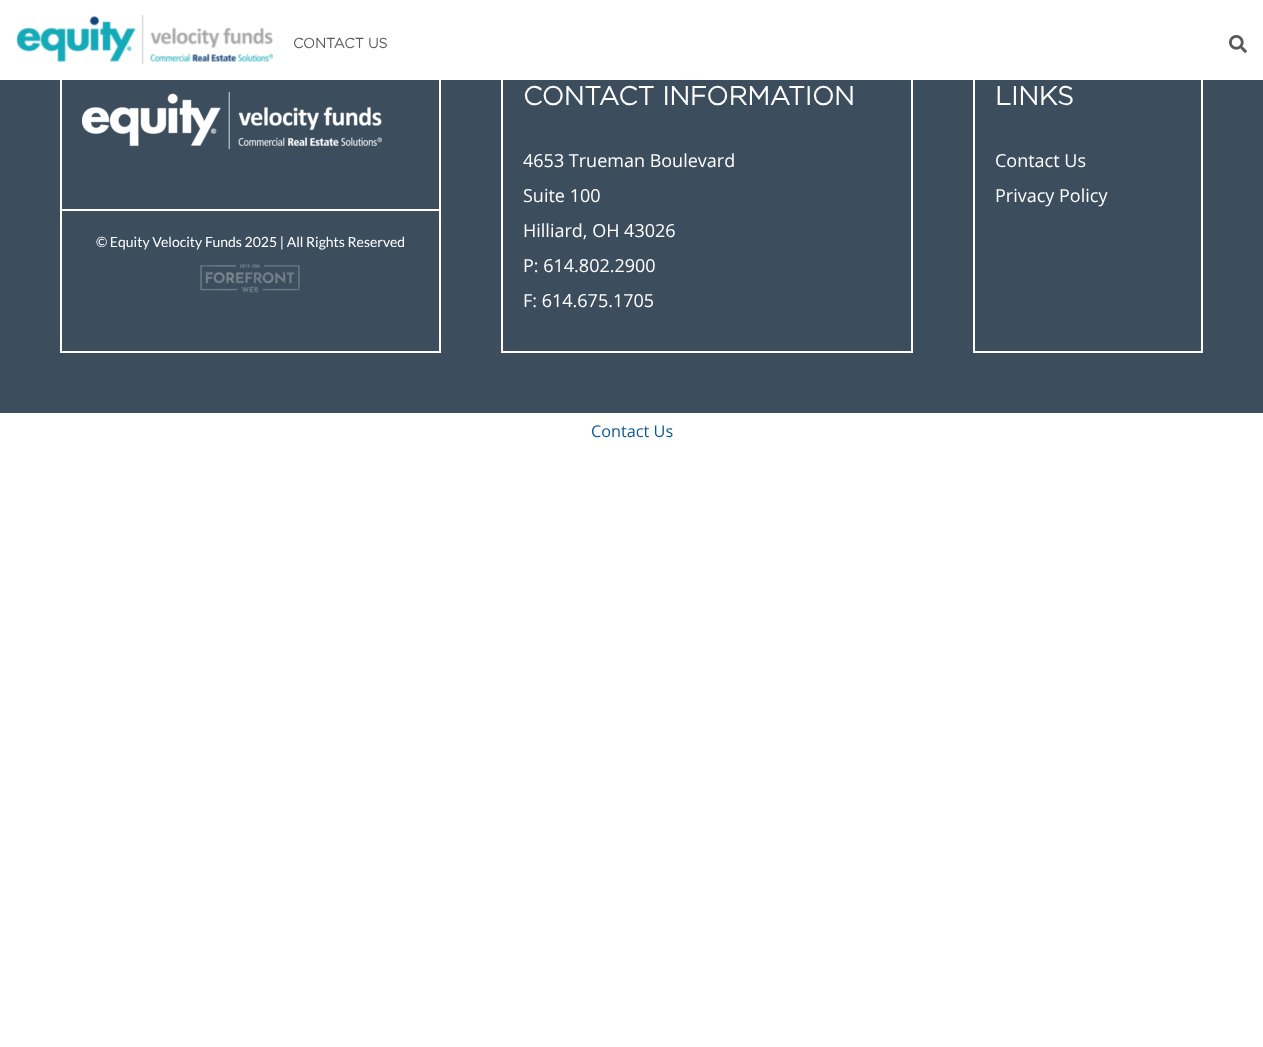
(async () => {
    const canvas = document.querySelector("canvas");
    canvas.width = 1263;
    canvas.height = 1047;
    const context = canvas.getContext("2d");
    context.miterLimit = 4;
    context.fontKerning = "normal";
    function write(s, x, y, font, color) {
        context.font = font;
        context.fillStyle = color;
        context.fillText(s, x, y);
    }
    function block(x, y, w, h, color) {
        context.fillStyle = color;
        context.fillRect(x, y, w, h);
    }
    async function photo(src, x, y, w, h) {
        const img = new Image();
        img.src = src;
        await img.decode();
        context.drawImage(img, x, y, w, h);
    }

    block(0, 0, 1263, 1047, "rgb(255, 255, 255)");
    block(0, 80, 1263, 333, "rgb(60, 78, 94)");
    context.strokeStyle = "rgb(255, 255, 255)";
    context.lineWidth = 2;
    context.strokeRect(61, 61, 379, 291);
    await photo("media/1.png", 16, 15, 257, 49);
    write("CONTACT US", 293, 48, "bold 14px Gotham", "rgb(88, 89, 92)");
    await photo("media/2.png", 1229, 35, 18, 18);
    context.strokeRect(502, 61, 410, 291);
    write("CONTACT INFORMATION", 523, 105, "bold 26px Gotham", "rgb(255, 255, 255)");
    write("4653 Trueman Boulevard", 523, 167, "18px Open Sans", "rgb(255, 255, 255)");
    write("Suite 100", 523, 202, "18px Open Sans", "rgb(255, 255, 255)");
    write("Hilliard, OH 43026", 523, 237, "18px Open Sans", "rgb(255, 255, 255)");
    write("P: 614.802.2900", 523, 272, "18px Open Sans", "rgb(255, 255, 255)");
    write("F: 614.675.1705", 523, 307, "18px Open Sans", "rgb(255, 255, 255)");
    context.strokeRect(974, 61, 228, 291);
    write("LINKS", 995, 105, "bold 26px Gotham", "rgb(255, 255, 255)");
    write("Contact Us", 995, 167, "18px Open Sans", "rgb(255, 255, 255)");
    write("Privacy Policy", 995, 202, "18px Open Sans", "rgb(255, 255, 255)");
    await photo("media/3.png", 82, 92, 300, 57);
    block(62, 209, 377, 2, "rgb(255, 255, 255)");
    write("© Equity Velocity Funds 2025 | All Rights Reserved", 96, 247, "14px Lato", "rgb(255, 255, 255)");
    await photo("media/4.png", 200, 264, 100, 29);
    write("Contact Us", 591, 437, "16.25px Open Sans", "rgb(10, 87, 149)");
})();
